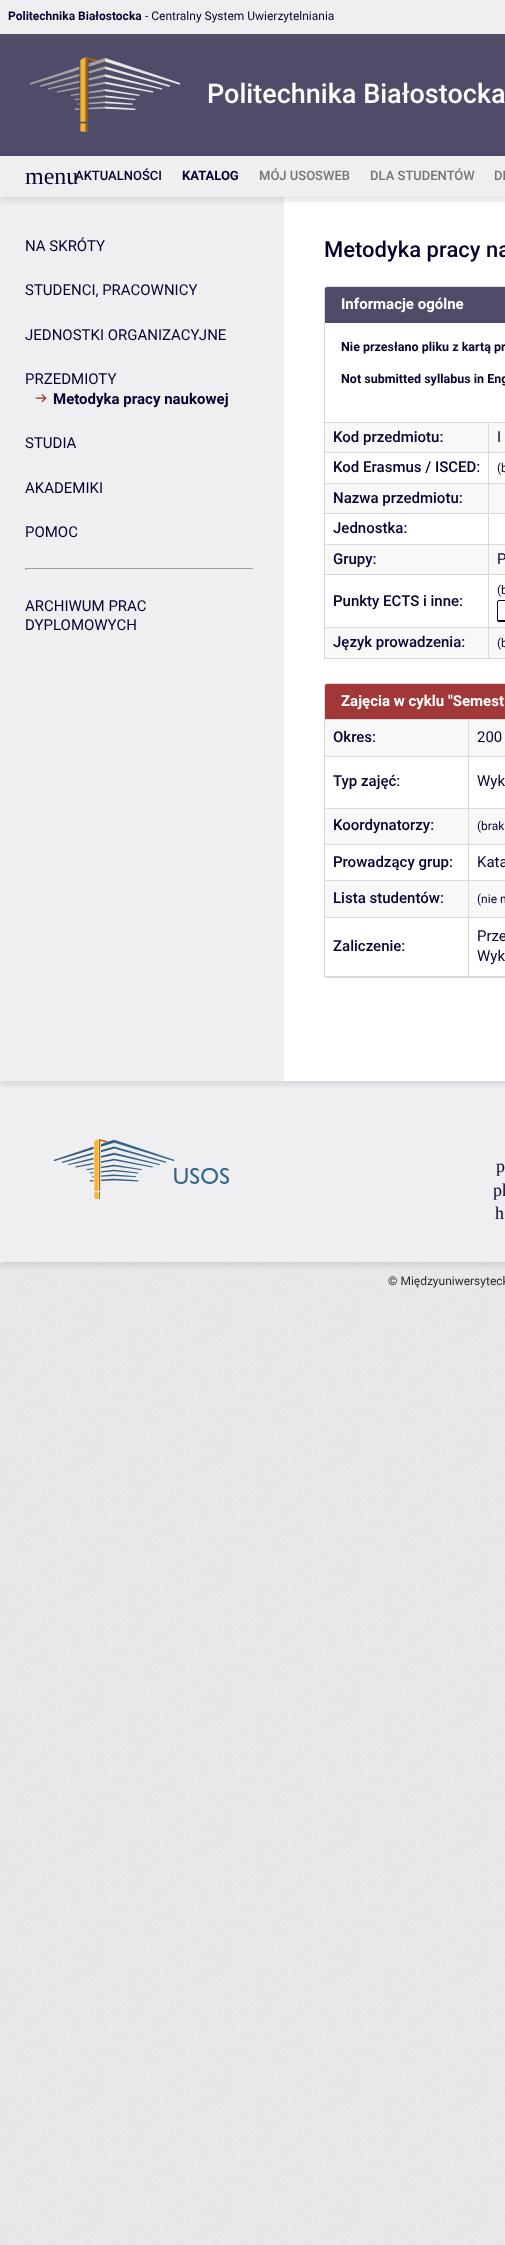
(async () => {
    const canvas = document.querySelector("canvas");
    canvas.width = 505;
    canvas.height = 2245;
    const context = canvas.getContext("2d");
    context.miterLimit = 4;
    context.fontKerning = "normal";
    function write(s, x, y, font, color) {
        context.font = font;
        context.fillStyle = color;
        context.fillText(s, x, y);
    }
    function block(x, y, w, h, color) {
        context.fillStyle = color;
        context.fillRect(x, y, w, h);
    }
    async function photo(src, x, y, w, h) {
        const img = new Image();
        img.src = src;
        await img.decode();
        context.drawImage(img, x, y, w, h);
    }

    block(0, 0, 505, 2245, "rgb(255, 255, 255)");
    await photo("media/1.png", 0, 1262, 505, 983);
    block(0, 0, 505, 34, "rgb(239, 239, 241)");
    write("Politechnika Białostocka", 8, 20, "bold 12px Roboto", "rgb(6, 2, 46)");
    write("- Centralny System Uwierzytelniania", 145, 20, "12px Roboto", "rgb(6, 2, 46)");
    block(0, 34, 505, 122, "rgb(79, 76, 106)");
    await photo("media/2.png", 30, 57, 150, 75);
    write("Politechnika Białostocka", 207, 103, "500 27px Roboto", "rgb(255, 255, 255)");
    context.fillStyle = "rgba(6, 6, 51, 0.12)";
    context.filter = "blur(3px)";
    context.beginPath();
    context.rect(0, 1084, 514, 181);
    context.fill();
    context.filter = "none";
    block(0, 1081, 505, 181, "rgb(239, 239, 241)");
    context.fillStyle = "rgba(6, 6, 51, 0.12)";
    context.filter = "blur(3px)";
    context.beginPath();
    context.rect(0, 200, 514, 884);
    context.fill();
    context.filter = "none";
    block(284, 197, 221, 884, "rgb(255, 255, 255)");
    block(0, 197, 284, 884, "rgb(239, 239, 241)");
    context.fillStyle = "rgba(6, 6, 51, 0.12)";
    context.filter = "blur(3px)";
    context.beginPath();
    context.rect(0, 159, 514, 41);
    context.fill();
    context.filter = "none";
    block(0, 156, 505, 41, "rgb(239, 239, 241)");
    write("menu", 25, 184, "24px Liberation Serif", "rgb(6, 2, 46)");
    write("AKTUALNOŚCI", 75, 180, "500 13px Roboto", "rgb(6, 2, 46)");
    write("KATALOG", 182, 180, "bold 13px Roboto", "rgb(6, 2, 46)");
    write("MÓJ USOSWEB", 259, 180, "500 13px Roboto", "rgb(117, 117, 117)");
    write("DLA STUDENTÓW", 370, 180, "500 13px Roboto", "rgb(117, 117, 117)");
    write("DL", 494, 180, "500 13px Roboto", "rgb(117, 117, 117)");
    write("NA SKRÓTY", 25, 251, "15px Roboto", "rgb(6, 2, 46)");
    write("STUDENCI, PRACOWNICY", 25, 295, "15px Roboto", "rgb(6, 2, 46)");
    write("JEDNOSTKI ORGANIZACYJNE", 25, 340, "15px Roboto", "rgb(6, 2, 46)");
    write("PRZEDMIOTY", 25, 384, "15px Roboto", "rgb(6, 2, 46)");
    await photo("media/3.png", 35, 394, 12, 9);
    write("Metodyka pracy naukowej", 53, 404, "bold 15px Roboto", "rgb(6, 2, 46)");
    write("STUDIA", 25, 448, "15px Roboto", "rgb(6, 2, 46)");
    write("AKADEMIKI", 25, 493, "15px Roboto", "rgb(6, 2, 46)");
    write("POMOC", 25, 537, "15px Roboto", "rgb(6, 2, 46)");
    block(25, 568, 229, 1, "rgb(159, 159, 159)");
    block(253, 568, 1, 2, "rgb(238, 238, 238)");
    block(25, 569, 229, 1, "rgb(238, 238, 238)");
    block(25, 568, 1, 2, "rgb(159, 159, 159)");
    write("ARCHIWUM PRAC", 25, 611, "15px Roboto", "rgb(6, 2, 46)");
    write("DYPLOMOWYCH", 25, 630, "15px Roboto", "rgb(6, 2, 46)");
    write("Metodyka pracy na", 324, 257, "500 22px Roboto", "rgb(6, 2, 46)");
    context.beginPath();
    context.moveTo(327, 286.5);
    context.lineTo(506, 286.5);
    context.bezierCurveTo(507.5, 286.5, 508.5, 287.5, 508.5, 289);
    context.lineTo(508.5, 657);
    context.bezierCurveTo(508.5, 658, 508, 658.5, 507, 658.5);
    context.lineTo(326, 658.5);
    context.bezierCurveTo(325, 658.5, 324.5, 658, 324.5, 657);
    context.lineTo(324.5, 289);
    context.bezierCurveTo(324.5, 287.5, 325.5, 286.5, 327, 286.5);
    context.closePath();
    context.strokeStyle = "rgb(218, 218, 222)";
    context.stroke();
    context.fillStyle = "rgb(79, 76, 106)";
    context.beginPath();
    context.moveTo(327, 287);
    context.lineTo(505, 287);
    context.bezierCurveTo(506, 287, 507, 288, 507, 289);
    context.lineTo(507, 323);
    context.lineTo(325, 323);
    context.lineTo(325, 289);
    context.bezierCurveTo(325, 288, 326, 287, 327, 287);
    context.closePath();
    context.fill();
    write("Informacje ogólne", 341, 309, "bold 15px Roboto", "rgb(255, 255, 255)");
    write("Nie przesłano pliku z kartą pr", 341, 351, "bold 12.5px Roboto", "rgb(6, 2, 46)");
    write("Not submitted syllabus in Eng", 341, 383, "bold 12.5px Roboto", "rgb(6, 2, 46)");
    block(325, 423, 163, 29, "rgb(248, 248, 248)");
    block(488, 422, 17, 1, "rgb(218, 218, 222)");
    block(488, 452, 17, 1, "rgb(218, 218, 222)");
    block(488, 483, 17, 1, "rgb(218, 218, 222)");
    block(488, 513, 17, 1, "rgb(218, 218, 222)");
    block(488, 544, 17, 1, "rgb(218, 218, 222)");
    block(488, 574, 17, 1, "rgb(218, 218, 222)");
    block(488, 627, 17, 1, "rgb(218, 218, 222)");
    block(488, 627, 1, 32, "rgb(218, 218, 222)");
    block(324, 627, 165, 1, "rgb(218, 218, 222)");
    block(488, 574, 1, 54, "rgb(218, 218, 222)");
    block(324, 574, 165, 1, "rgb(218, 218, 222)");
    block(488, 544, 1, 31, "rgb(218, 218, 222)");
    block(324, 544, 165, 1, "rgb(218, 218, 222)");
    block(488, 513, 1, 32, "rgb(218, 218, 222)");
    block(324, 513, 165, 1, "rgb(218, 218, 222)");
    block(488, 483, 1, 31, "rgb(218, 218, 222)");
    block(324, 483, 165, 1, "rgb(218, 218, 222)");
    block(488, 452, 1, 32, "rgb(218, 218, 222)");
    block(324, 452, 165, 1, "rgb(218, 218, 222)");
    block(488, 422, 1, 31, "rgb(218, 218, 222)");
    block(324, 422, 165, 1, "rgb(218, 218, 222)");
    write("Kod przedmiotu:", 333, 442, "500 15px Roboto", "rgb(6, 2, 46)");
    block(489, 423, 16, 29, "rgb(248, 248, 248)");
    write("I", 497, 442, "15px Roboto", "rgb(6, 2, 46)");
    write("Kod Erasmus / ISCED:", 333, 472, "500 15px Roboto", "rgb(6, 2, 46)");
    write("(b", 497, 472, "12px Roboto", "rgb(6, 2, 46)");
    block(325, 484, 163, 29, "rgb(248, 248, 248)");
    write("Nazwa przedmiotu:", 333, 503, "500 15px Roboto", "rgb(6, 2, 46)");
    block(489, 484, 16, 29, "rgb(248, 248, 248)");
    write("Jednostka:", 333, 533, "500 15px Roboto", "rgb(6, 2, 46)");
    block(325, 545, 163, 29, "rgb(248, 248, 248)");
    write("Grupy:", 333, 564, "500 15px Roboto", "rgb(6, 2, 46)");
    block(489, 545, 16, 29, "rgb(248, 248, 248)");
    write("P", 497, 564, "15px Roboto", "rgb(6, 2, 46)");
    write("(b", 497, 594, "12px Roboto", "rgb(6, 2, 46)");
    context.beginPath();
    context.roundRect(497.5, 600.5, 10, 21, 1.5);
    context.strokeStyle = "rgb(6, 2, 46)";
    context.stroke();
    block(498, 620, 7, 1, "rgb(6, 2, 46)");
    write("Punkty ECTS i inne:", 333, 606, "500 15px Roboto", "rgb(6, 2, 46)");
    block(325, 628, 163, 30, "rgb(248, 248, 248)");
    block(324, 658, 2, 1, "rgb(218, 218, 222)");
    block(324, 657, 1, 2, "rgb(218, 218, 222)");
    write("Język prowadzenia:", 333, 647, "500 15px Roboto", "rgb(6, 2, 46)");
    block(489, 628, 16, 30, "rgb(248, 248, 248)");
    write("(b", 497, 647, "12px Roboto", "rgb(6, 2, 46)");
    context.beginPath();
    context.moveTo(327, 683.5);
    context.lineTo(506, 683.5);
    context.bezierCurveTo(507.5, 683.5, 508.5, 684.5, 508.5, 686);
    context.lineTo(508.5, 976);
    context.bezierCurveTo(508.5, 977, 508, 977.5, 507, 977.5);
    context.lineTo(326, 977.5);
    context.bezierCurveTo(325, 977.5, 324.5, 977, 324.5, 976);
    context.lineTo(324.5, 686);
    context.bezierCurveTo(324.5, 684.5, 325.5, 683.5, 327, 683.5);
    context.closePath();
    context.strokeStyle = "rgb(218, 218, 222)";
    context.stroke();
    context.fillStyle = "rgb(162, 55, 55)";
    context.beginPath();
    context.moveTo(327, 684);
    context.lineTo(505, 684);
    context.bezierCurveTo(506, 684, 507, 685, 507, 686);
    context.lineTo(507, 720);
    context.lineTo(325, 720);
    context.lineTo(325, 686);
    context.bezierCurveTo(325, 685, 326, 684, 327, 684);
    context.closePath();
    context.fill();
    write("Zajęcia w cyklu \"Semest", 341, 706, "bold 15px Roboto", "rgb(255, 255, 255)");
    block(325, 720, 143, 36, "rgb(248, 248, 248)");
    block(468, 719, 37, 1, "rgb(218, 218, 222)");
    block(468, 756, 37, 1, "rgb(218, 218, 222)");
    block(468, 808, 37, 1, "rgb(218, 218, 222)");
    block(468, 844, 37, 1, "rgb(218, 218, 222)");
    block(468, 880, 37, 1, "rgb(218, 218, 222)");
    block(468, 917, 37, 1, "rgb(218, 218, 222)");
    block(468, 976, 37, 1, "rgb(218, 218, 222)");
    block(468, 917, 1, 60, "rgb(218, 218, 222)");
    block(324, 917, 145, 1, "rgb(218, 218, 222)");
    block(468, 880, 1, 38, "rgb(218, 218, 222)");
    block(324, 880, 145, 1, "rgb(218, 218, 222)");
    block(468, 844, 1, 37, "rgb(218, 218, 222)");
    block(324, 844, 145, 1, "rgb(218, 218, 222)");
    block(468, 808, 1, 37, "rgb(218, 218, 222)");
    block(324, 808, 145, 1, "rgb(218, 218, 222)");
    block(468, 756, 1, 53, "rgb(218, 218, 222)");
    block(324, 756, 145, 1, "rgb(218, 218, 222)");
    block(468, 719, 1, 38, "rgb(218, 218, 222)");
    block(324, 719, 145, 1, "rgb(218, 218, 222)");
    write("Okres:", 333, 742, "500 15px Roboto", "rgb(6, 2, 46)");
    block(469, 720, 36, 36, "rgb(248, 248, 248)");
    write("200", 477, 742, "15px Roboto", "rgb(6, 2, 46)");
    write("Typ zajęć:", 333, 786, "500 15px Roboto", "rgb(6, 2, 46)");
    write("Wyk", 477, 786, "15px Roboto", "rgb(6, 2, 46)");
    block(325, 809, 143, 35, "rgb(248, 248, 248)");
    write("Koordynatorzy:", 333, 830, "500 15px Roboto", "rgb(6, 2, 46)");
    block(469, 809, 36, 35, "rgb(248, 248, 248)");
    write("(brak", 477, 830, "12px Roboto", "rgb(6, 2, 46)");
    write("Prowadzący grup:", 333, 867, "500 15px Roboto", "rgb(6, 2, 46)");
    write("Kata", 477, 867, "15px Roboto", "rgb(6, 2, 46)");
    block(325, 881, 143, 36, "rgb(248, 248, 248)");
    write("Lista studentów:", 333, 903, "500 15px Roboto", "rgb(6, 2, 46)");
    block(469, 881, 36, 36, "rgb(248, 248, 248)");
    write("(nie m", 477, 903, "12px Roboto", "rgb(6, 2, 46)");
    block(324, 976, 145, 1, "rgb(218, 218, 222)");
    write("Zaliczenie:", 333, 951, "500 15px Roboto", "rgb(6, 2, 46)");
    write("Prze", 477, 941, "15px Roboto", "rgb(6, 2, 46)");
    write("Wyk", 477, 961, "15px Roboto", "rgb(6, 2, 46)");
    await photo("media/4.png", 53, 1139, 176, 60);
    write("p", 496, 1172, "18px Liberation Serif", "rgb(6, 2, 46)");
    write("ph", 493, 1196, "18px Liberation Serif", "rgb(6, 2, 46)");
    write("h", 495, 1219, "18px Liberation Serif", "rgb(6, 2, 46)");
    write("© Międzyuniwersyteck", 388, 1285, "12px Roboto", "rgb(43, 42, 41)");
})();
